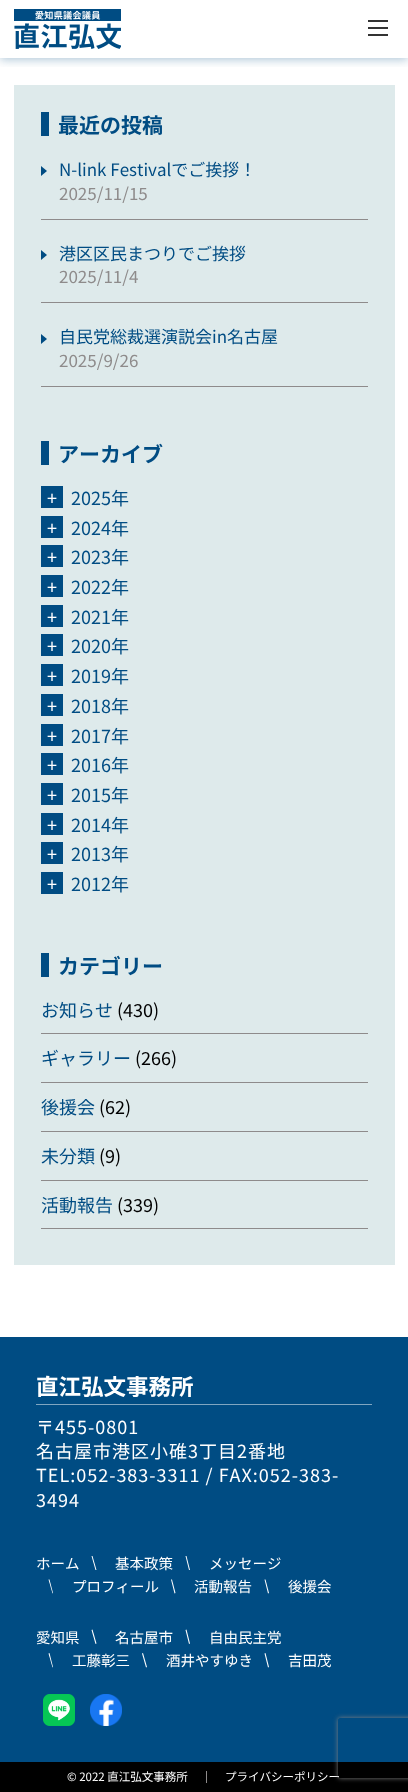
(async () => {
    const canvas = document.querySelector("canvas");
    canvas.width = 408;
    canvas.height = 1792;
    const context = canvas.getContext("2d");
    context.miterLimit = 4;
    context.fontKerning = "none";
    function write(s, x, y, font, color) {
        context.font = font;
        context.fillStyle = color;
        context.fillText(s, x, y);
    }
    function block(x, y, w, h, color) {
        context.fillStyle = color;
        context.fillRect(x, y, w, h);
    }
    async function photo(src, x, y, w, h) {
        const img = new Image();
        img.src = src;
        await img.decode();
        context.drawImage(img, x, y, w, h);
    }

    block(0, 0, 408, 1792, "rgb(255, 255, 255)");
    context.save();
    context.beginPath();
    context.rect(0, 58, 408, 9);
    context.clip();
    context.fillStyle = "rgba(0, 76, 130, 0.3)";
    context.filter = "blur(5px)";
    context.beginPath();
    context.rect(0, 2, 408, 58);
    context.fill();
    context.filter = "none";
    context.restore();
    await photo("media/1.png", 14, 9, 107, 40);
    block(368, 20, 20, 2, "rgb(51, 51, 51)");
    block(368, 27, 20, 2, "rgb(51, 51, 51)");
    block(368, 34, 20, 2, "rgb(51, 51, 51)");
    block(14, 85, 381, 1180, "rgb(222, 234, 235)");
    block(41, 112, 8, 24, "rgb(0, 76, 131)");
    write("最近の投稿", 58, 133, "bold 21px Noto Sans JP", "rgb(0, 76, 131)");
    block(41, 219, 327, 1, "rgb(142, 139, 139)");
    context.fillStyle = "rgb(0, 76, 131)";
    context.beginPath();
    context.moveTo(41, 176);
    context.lineTo(41, 166);
    context.lineTo(47, 171);
    context.closePath();
    context.fill();
    write("N-link Festivalでご挨拶！", 59, 176, "17px Noto Sans JP", "rgb(0, 76, 131)");
    write("2025/11/15", 59, 200, "17px Noto Sans JP", "rgb(142, 139, 139)");
    block(41, 302, 327, 1, "rgb(142, 139, 139)");
    context.fillStyle = "rgb(0, 76, 131)";
    context.beginPath();
    context.moveTo(41, 260);
    context.lineTo(41, 250);
    context.lineTo(47, 255);
    context.closePath();
    context.fill();
    write("港区区民まつりでご挨拶", 59, 260, "17px Noto Sans JP", "rgb(0, 76, 131)");
    write("2025/11/4", 59, 283, "17px Noto Sans JP", "rgb(142, 139, 139)");
    block(41, 386, 327, 1, "rgb(142, 139, 139)");
    context.fillStyle = "rgb(0, 76, 131)";
    context.beginPath();
    context.moveTo(41, 344);
    context.lineTo(41, 334);
    context.lineTo(47, 339);
    context.closePath();
    context.fill();
    write("自民党総裁選演説会in名古屋", 59, 343, "17px Noto Sans JP", "rgb(0, 76, 131)");
    write("2025/9/26", 59, 367, "17px Noto Sans JP", "rgb(142, 139, 139)");
    block(41, 441, 8, 24, "rgb(0, 76, 131)");
    write("アーカイブ", 58, 462, "bold 21px Noto Sans JP", "rgb(0, 76, 131)");
    block(41, 486, 22, 22, "rgb(0, 76, 131)");
    write("+", 47, 505, "18px Noto Sans JP", "rgb(255, 255, 255)");
    write("2025年", 71, 505, "18px Noto Sans JP", "rgb(0, 76, 131)");
    block(41, 516, 22, 22, "rgb(0, 76, 131)");
    write("+", 47, 535, "18px Noto Sans JP", "rgb(255, 255, 255)");
    write("2024年", 71, 535, "18px Noto Sans JP", "rgb(0, 76, 131)");
    block(41, 545, 22, 22, "rgb(0, 76, 131)");
    write("+", 47, 564, "18px Noto Sans JP", "rgb(255, 255, 255)");
    write("2023年", 71, 564, "18px Noto Sans JP", "rgb(0, 76, 131)");
    block(41, 575, 22, 22, "rgb(0, 76, 131)");
    write("+", 47, 594, "18px Noto Sans JP", "rgb(255, 255, 255)");
    write("2022年", 71, 594, "18px Noto Sans JP", "rgb(0, 76, 131)");
    block(41, 605, 22, 22, "rgb(0, 76, 131)");
    write("+", 47, 624, "18px Noto Sans JP", "rgb(255, 255, 255)");
    write("2021年", 71, 624, "18px Noto Sans JP", "rgb(0, 76, 131)");
    block(41, 634, 22, 22, "rgb(0, 76, 131)");
    write("+", 47, 653, "18px Noto Sans JP", "rgb(255, 255, 255)");
    write("2020年", 71, 653, "18px Noto Sans JP", "rgb(0, 76, 131)");
    block(41, 664, 22, 22, "rgb(0, 76, 131)");
    write("+", 47, 683, "18px Noto Sans JP", "rgb(255, 255, 255)");
    write("2019年", 71, 683, "18px Noto Sans JP", "rgb(0, 76, 131)");
    block(41, 694, 22, 22, "rgb(0, 76, 131)");
    write("+", 47, 713, "18px Noto Sans JP", "rgb(255, 255, 255)");
    write("2018年", 71, 713, "18px Noto Sans JP", "rgb(0, 76, 131)");
    block(41, 724, 22, 22, "rgb(0, 76, 131)");
    write("+", 47, 743, "18px Noto Sans JP", "rgb(255, 255, 255)");
    write("2017年", 71, 743, "18px Noto Sans JP", "rgb(0, 76, 131)");
    block(41, 753, 22, 22, "rgb(0, 76, 131)");
    write("+", 47, 772, "18px Noto Sans JP", "rgb(255, 255, 255)");
    write("2016年", 71, 772, "18px Noto Sans JP", "rgb(0, 76, 131)");
    block(41, 783, 22, 22, "rgb(0, 76, 131)");
    write("+", 47, 802, "18px Noto Sans JP", "rgb(255, 255, 255)");
    write("2015年", 71, 802, "18px Noto Sans JP", "rgb(0, 76, 131)");
    block(41, 813, 22, 22, "rgb(0, 76, 131)");
    write("+", 47, 832, "18px Noto Sans JP", "rgb(255, 255, 255)");
    write("2014年", 71, 832, "18px Noto Sans JP", "rgb(0, 76, 131)");
    block(41, 842, 22, 22, "rgb(0, 76, 131)");
    write("+", 47, 861, "18px Noto Sans JP", "rgb(255, 255, 255)");
    write("2013年", 71, 861, "18px Noto Sans JP", "rgb(0, 76, 131)");
    block(41, 872, 22, 22, "rgb(0, 76, 131)");
    write("+", 47, 891, "18px Noto Sans JP", "rgb(255, 255, 255)");
    write("2012年", 71, 891, "18px Noto Sans JP", "rgb(0, 76, 131)");
    block(41, 953, 8, 24, "rgb(0, 76, 131)");
    write("カテゴリー", 58, 974, "bold 21px Noto Sans JP", "rgb(0, 76, 131)");
    block(41, 1033, 327, 1, "rgb(142, 139, 139)");
    write("お知らせ", 41, 1017, "18px Noto Sans JP", "rgb(0, 76, 131)");
    write("(430)", 117, 1017, "18px Noto Sans JP", "rgb(0, 0, 0)");
    block(41, 1082, 327, 1, "rgb(142, 139, 139)");
    write("ギャラリー", 41, 1065, "18px Noto Sans JP", "rgb(0, 76, 131)");
    write("(266)", 135, 1065, "18px Noto Sans JP", "rgb(0, 0, 0)");
    block(41, 1131, 327, 1, "rgb(142, 139, 139)");
    write("後援会", 41, 1114, "18px Noto Sans JP", "rgb(0, 76, 131)");
    write("(62)", 99, 1114, "18px Noto Sans JP", "rgb(0, 0, 0)");
    block(41, 1180, 327, 1, "rgb(142, 139, 139)");
    write("未分類", 41, 1163, "18px Noto Sans JP", "rgb(0, 76, 131)");
    write("(9)", 99, 1163, "18px Noto Sans JP", "rgb(0, 0, 0)");
    block(41, 1228, 327, 1, "rgb(142, 139, 139)");
    write("活動報告", 41, 1212, "18px Noto Sans JP", "rgb(0, 76, 131)");
    write("(339)", 117, 1212, "18px Noto Sans JP", "rgb(0, 0, 0)");
    block(0, 1337, 408, 425, "rgb(0, 76, 131)");
    block(36, 1404, 336, 1, "rgb(128, 166, 193)");
    write("直江弘文事務所", 36, 1395, "bold 22.5px Noto Sans JP", "rgb(255, 255, 255)");
    context.letterSpacing = "1px";
    write("〒455-0801", 36, 1434, "18px Noto Sans JP", "rgb(255, 255, 255)");
    write("名古屋市港区小碓3丁目2番地", 36, 1458, "18px Noto Sans JP", "rgb(255, 255, 255)");
    write("TEL:052-383-3311 / FAX:052-383-", 36, 1482, "18px Noto Sans JP", "rgb(255, 255, 255)");
    write("3494", 36, 1507, "18px Noto Sans JP", "rgb(255, 255, 255)");
    context.letterSpacing = "0px";
    write("ホーム", 36, 1569, "14.5px Noto Sans JP", "rgb(255, 255, 255)");
    context.beginPath();
    context.moveTo(91.5, 1556);
    context.lineTo(92.5, 1556);
    context.lineTo(96.5, 1570);
    context.lineTo(95.5, 1570);
    context.closePath();
    context.fill();
    write("基本政策", 115, 1569, "14.5px Noto Sans JP", "rgb(255, 255, 255)");
    context.beginPath();
    context.moveTo(185.5, 1556);
    context.lineTo(186.5, 1556);
    context.lineTo(190, 1570);
    context.lineTo(189, 1570);
    context.closePath();
    context.fill();
    write("メッセージ", 209, 1569, "14.5px Noto Sans JP", "rgb(255, 255, 255)");
    context.beginPath();
    context.moveTo(48.5, 1579.5);
    context.lineTo(49.5, 1579.5);
    context.lineTo(53, 1593);
    context.lineTo(52.5, 1593.5);
    context.closePath();
    context.fill();
    write("プロフィール", 72, 1592, "14.5px Noto Sans JP", "rgb(255, 255, 255)");
    context.beginPath();
    context.moveTo(171, 1579.5);
    context.lineTo(172, 1579.5);
    context.lineTo(175.5, 1593);
    context.lineTo(174.5, 1593.5);
    context.closePath();
    context.fill();
    write("活動報告", 194, 1592, "14.5px Noto Sans JP", "rgb(255, 255, 255)");
    context.beginPath();
    context.moveTo(264.5, 1579.5);
    context.lineTo(265.5, 1579.5);
    context.lineTo(269, 1593);
    context.lineTo(268, 1593.5);
    context.closePath();
    context.fill();
    write("後援会", 288, 1592, "14.5px Noto Sans JP", "rgb(255, 255, 255)");
    write("愛知県", 36, 1643, "14.5px Noto Sans JP", "rgb(255, 255, 255)");
    context.beginPath();
    context.moveTo(91.5, 1630);
    context.lineTo(92.5, 1629.5);
    context.lineTo(96.5, 1643.5);
    context.lineTo(95.5, 1644);
    context.closePath();
    context.fill();
    write("名古屋市", 115, 1643, "14.5px Noto Sans JP", "rgb(255, 255, 255)");
    context.beginPath();
    context.moveTo(185.5, 1630);
    context.lineTo(186.5, 1629.5);
    context.lineTo(190, 1643.5);
    context.lineTo(189, 1644);
    context.closePath();
    context.fill();
    write("自由民主党", 209, 1643, "14.5px Noto Sans JP", "rgb(255, 255, 255)");
    context.beginPath();
    context.moveTo(48.5, 1653.5);
    context.lineTo(49.5, 1653);
    context.lineTo(53, 1667);
    context.lineTo(52.5, 1667.5);
    context.closePath();
    context.fill();
    write("工藤彰三", 72, 1666, "14.5px Noto Sans JP", "rgb(255, 255, 255)");
    context.beginPath();
    context.moveTo(142, 1653.5);
    context.lineTo(143, 1653);
    context.lineTo(147, 1667);
    context.lineTo(146, 1667.5);
    context.closePath();
    context.fill();
    write("酒井やすゆき", 166, 1666, "14.5px Noto Sans JP", "rgb(255, 255, 255)");
    context.beginPath();
    context.moveTo(264.5, 1653.5);
    context.lineTo(265.5, 1653);
    context.lineTo(269, 1667);
    context.lineTo(268, 1667.5);
    context.closePath();
    context.fill();
    write("吉田茂", 288, 1666, "14.5px Noto Sans JP", "rgb(255, 255, 255)");
    await photo("media/2.png", 43, 1694, 32, 32);
    await photo("media/3.png", 90, 1694, 32, 32);
    block(0, 1762, 408, 30, "rgb(0, 0, 0)");
    write("© 2022 直江弘文事務所", 67, 1781, "11.5px Noto Sans JP", "rgb(255, 255, 255)");
    block(206, 1771, 1, 12, "rgb(142, 139, 139)");
    write("プライバシーポリシー", 225, 1781, "11.5px Noto Sans JP", "rgb(255, 255, 255)");
    context.save();
    context.beginPath();
    context.moveTo(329, 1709);
    context.lineTo(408, 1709);
    context.lineTo(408, 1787);
    context.lineTo(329, 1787);
    context.closePath();
    context.moveTo(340, 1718);
    context.lineTo(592, 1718);
    context.bezierCurveTo(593, 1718, 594, 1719, 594, 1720);
    context.lineTo(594, 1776);
    context.bezierCurveTo(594, 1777, 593, 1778, 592, 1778);
    context.lineTo(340, 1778);
    context.bezierCurveTo(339, 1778, 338, 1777, 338, 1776);
    context.lineTo(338, 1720);
    context.bezierCurveTo(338, 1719, 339, 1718, 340, 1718);
    context.closePath();
    context.clip("evenodd");
    context.fillStyle = "rgb(128, 128, 128)";
    context.filter = "blur(2.5px)";
    context.beginPath();
    context.roundRect(338, 1718, 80, 60, 2);
    context.fill();
    context.filter = "none";
    context.restore();
})();
